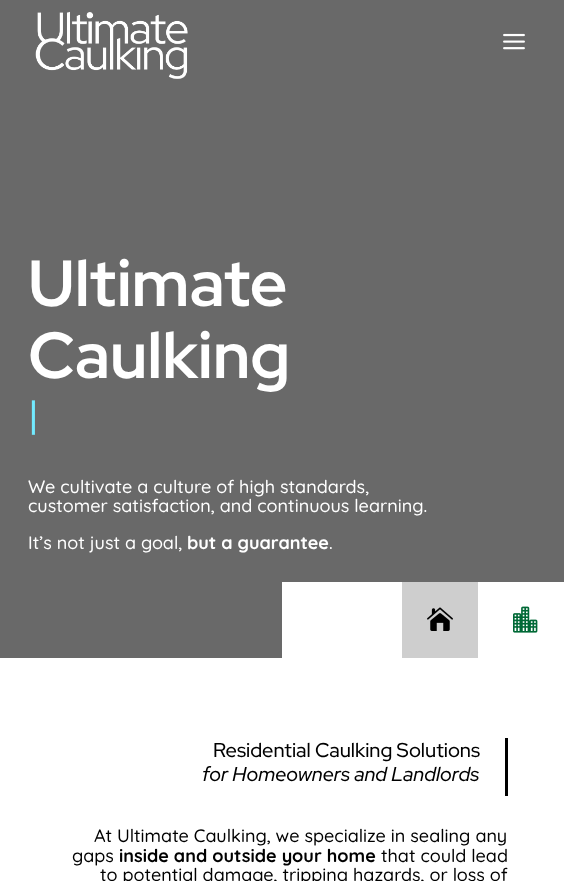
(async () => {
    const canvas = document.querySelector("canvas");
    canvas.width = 564;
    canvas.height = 881;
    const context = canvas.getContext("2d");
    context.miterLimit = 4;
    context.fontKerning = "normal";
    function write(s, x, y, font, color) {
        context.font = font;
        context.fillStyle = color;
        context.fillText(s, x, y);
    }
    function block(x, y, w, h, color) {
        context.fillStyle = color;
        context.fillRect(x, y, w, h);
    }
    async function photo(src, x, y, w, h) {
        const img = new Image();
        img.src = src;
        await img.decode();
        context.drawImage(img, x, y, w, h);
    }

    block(0, 0, 564, 881, "rgb(255, 255, 255)");
    block(0, 0, 564, 658, "rgb(105, 105, 105)");
    await photo("media/1.png", 35, 11, 153, 68);
    await photo("media/2.png", 503, 33, 22, 17);
    write("Ultimate", 28, 306, "bold 65px Red Hat Display", "rgb(255, 255, 255)");
    write("Caulking", 28, 378, "bold 65px Red Hat Display", "rgb(255, 255, 255)");
    write("|", 28, 427, "500 38px Red Hat Display", "rgb(114, 234, 255)");
    write("We cultivate a culture of high standards,", 28, 493, "500 18px Quicksand", "rgb(255, 255, 255)");
    write("customer satisfaction, and continuous learning.", 28, 512, "500 18px Quicksand", "rgb(255, 255, 255)");
    write("It’s not just a goal,", 28, 549, "500 18px Quicksand", "rgb(255, 255, 255)");
    write("but a guarantee", 187, 549, "bold 18px Quicksand", "rgb(255, 255, 255)");
    write(".", 329, 549, "500 18px Quicksand", "rgb(255, 255, 255)");
    block(282, 582, 282, 76, "rgb(255, 255, 255)");
    block(402, 582, 76, 76, "rgb(206, 206, 206)");
    await photo("media/3.png", 427, 607, 26, 24);
    await photo("media/4.png", 513, 606, 25, 27);
    block(505, 738, 3, 58, "rgb(0, 0, 0)");
    write("Residential Caulking Solutions", 213, 757, "500 20px Red Hat Display", "rgb(0, 0, 0)");
    write("for Homeowners and Landlords", 202, 781, "italic 500 20px Red Hat Display", "rgb(0, 0, 0)");
    write("At Ultimate Caulking, we specialize in sealing any", 94, 842, "500 18px Quicksand", "rgb(0, 0, 0)");
    write("gaps", 72, 862, "500 18px Quicksand", "rgb(0, 0, 0)");
    write("inside and outside your home", 119, 862, "bold 18px Quicksand", "rgb(0, 0, 0)");
    write("that could lead", 381, 862, "500 18px Quicksand", "rgb(0, 0, 0)");
    write("to potential damage, tripping hazards, or loss of", 100, 881, "500 18px Quicksand", "rgb(0, 0, 0)");
})();
